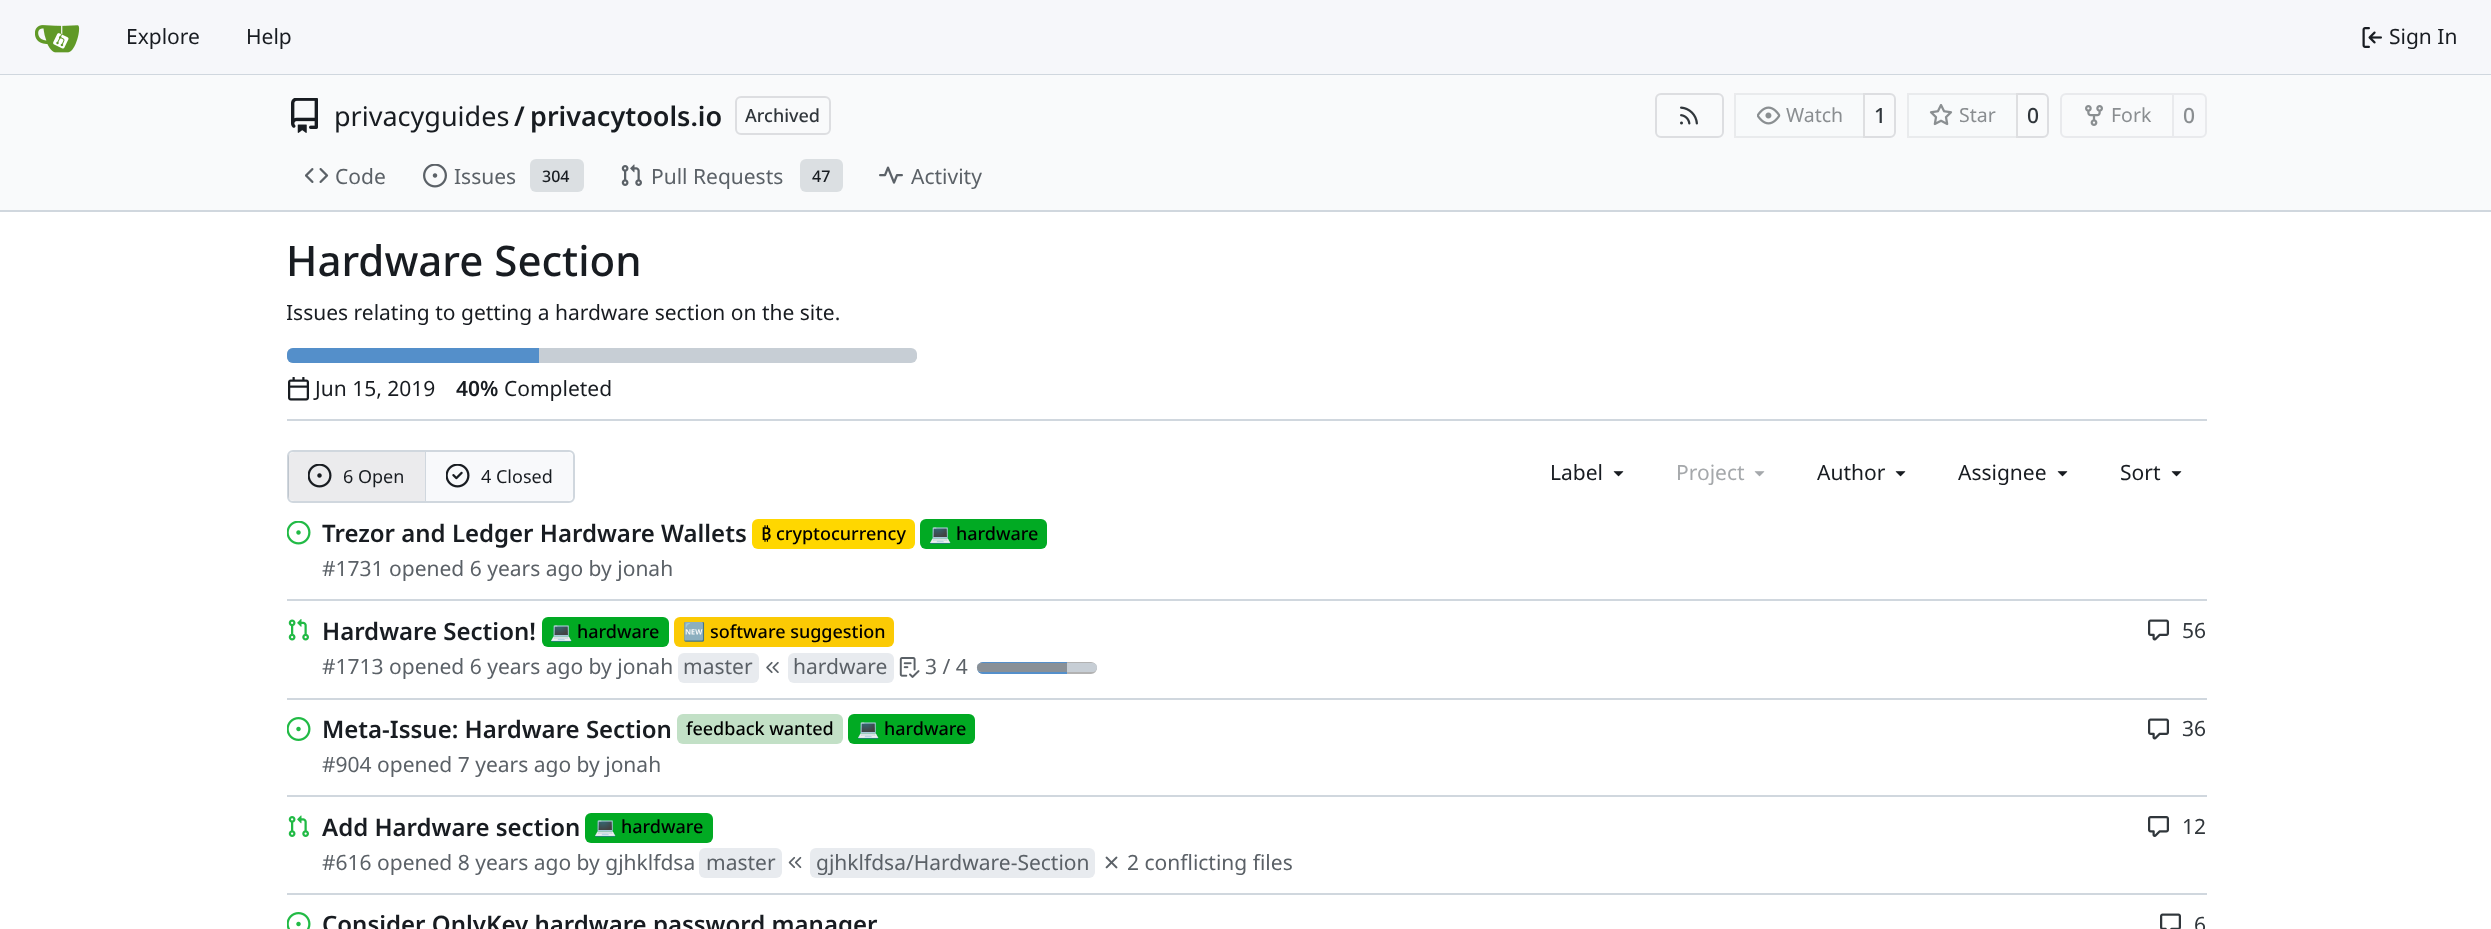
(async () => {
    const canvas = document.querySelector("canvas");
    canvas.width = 2491;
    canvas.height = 929;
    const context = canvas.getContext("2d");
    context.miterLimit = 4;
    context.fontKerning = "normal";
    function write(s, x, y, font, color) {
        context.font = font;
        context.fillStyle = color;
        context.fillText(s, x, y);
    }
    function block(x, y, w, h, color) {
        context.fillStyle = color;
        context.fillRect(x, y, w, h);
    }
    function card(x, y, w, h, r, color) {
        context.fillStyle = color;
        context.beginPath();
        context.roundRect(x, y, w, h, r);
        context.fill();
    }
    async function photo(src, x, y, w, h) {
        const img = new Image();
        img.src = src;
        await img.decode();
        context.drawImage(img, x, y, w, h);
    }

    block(0, 0, 2491, 929, "rgb(255, 255, 255)");
    block(0, 0, 2491, 74, "rgb(246, 247, 250)");
    block(0, 74, 2491, 1, "rgb(208, 215, 222)");
    await photo("media/1.png", 35, 25, 45, 28);
    write("Explore", 126, 44, "21px Noto Sans", "rgb(24, 28, 33)");
    write("Help", 246, 44, "21px Noto Sans", "rgb(24, 28, 33)");
    await photo("media/2.png", 2362, 27, 20, 21);
    write("Sign In", 2389, 44, "21px Noto Sans", "rgb(24, 28, 33)");
    block(0, 75, 2491, 135, "rgb(249, 250, 251)");
    await photo("media/3.png", 291, 98, 27, 35);
    write("privacyguides", 334, 126, "27px Noto Sans", "rgb(24, 28, 33)");
    write("/", 514, 126, "600 27px Noto Sans", "rgb(24, 28, 33)");
    write("privacytools.io", 530, 126, "600 27px Noto Sans", "rgb(24, 28, 33)");
    context.beginPath();
    context.roundRect(736, 97, 94, 37, 5);
    context.strokeStyle = "rgb(221, 222, 225)";
    context.lineWidth = 2;
    context.stroke();
    write("Archived", 745, 122, "500 18px Noto Sans", "rgb(48, 54, 59)");
    context.beginPath();
    context.roundRect(1656, 94, 67, 43, 5);
    context.stroke();
    await photo("media/4.png", 1680, 106, 18, 19);
    context.beginPath();
    context.roundRect(1864, 94, 31, 43, [0, 5, 5, 0]);
    context.stroke();
    context.fillStyle = "rgba(248, 249, 251, 0.55)";
    context.beginPath();
    context.roundRect(1734, 93, 131, 45, [6, 0, 0, 6]);
    context.fill();
    context.strokeStyle = "rgba(0, 0, 23, 0.06)";
    context.strokeRect(1735, 94, 129, 43);
    await photo("media/5.png", 1757, 106, 24, 19);
    write("Watch", 1786, 122, "19.5px Noto Sans", "rgb(138, 142, 145)");
    write("1", 1874, 123, "500 21px Noto Sans", "rgb(48, 54, 59)");
    context.beginPath();
    context.roundRect(2017, 94, 31, 43, [0, 5, 5, 0]);
    context.strokeStyle = "rgb(221, 222, 225)";
    context.stroke();
    context.fillStyle = "rgba(248, 249, 251, 0.55)";
    context.beginPath();
    context.roundRect(1907, 93, 111, 45, [6, 0, 0, 6]);
    context.fill();
    context.strokeStyle = "rgba(0, 0, 23, 0.06)";
    context.strokeRect(1908, 94, 109, 43);
    await photo("media/6.png", 1929, 104, 24, 22);
    write("Star", 1959, 122, "19.5px Noto Sans", "rgb(138, 142, 145)");
    write("0", 2027, 123, "500 21px Noto Sans", "rgb(48, 54, 59)");
    context.beginPath();
    context.roundRect(2061, 94, 112, 43, [5, 0, 0, 5]);
    context.strokeStyle = "rgb(233, 234, 237)";
    context.stroke();
    await photo("media/7.png", 2085, 105, 18, 21);
    write("Fork", 2111, 122, "19.5px Noto Sans", "rgb(138, 142, 145)");
    context.fillStyle = "rgb(248, 249, 251)";
    context.beginPath();
    context.roundRect(2173, 94, 33, 43, [0, 5, 5, 0]);
    context.fill();
    context.stroke();
    write("0", 2183, 123, "500 21px Noto Sans", "rgb(138, 142, 145)");
    await photo("media/8.png", 305, 168, 24, 15);
    write("Code", 335, 184, "21px Noto Sans", "rgb(91, 97, 103)");
    await photo("media/9.png", 423, 164, 24, 24);
    write("Issues", 454, 184, "21px Noto Sans", "rgb(91, 97, 103)");
    card(530, 159, 54, 33, 6, "rgb(219, 223, 226)");
    write("304", 542, 182, "500 16px Noto Sans", "rgb(24, 28, 33)");
    await photo("media/10.png", 621, 164, 21, 22);
    write("Pull Requests", 651, 184, "21px Noto Sans", "rgb(91, 97, 103)");
    card(800, 159, 43, 33, 6, "rgb(219, 223, 226)");
    write("47", 812, 182, "500 16px Noto Sans", "rgb(24, 28, 33)");
    await photo("media/11.png", 879, 166, 24, 18);
    write("Activity", 911, 184, "21px Noto Sans", "rgb(91, 97, 103)");
    block(0, 210, 2491, 2, "rgb(208, 215, 222)");
    write("Hardware Section", 286, 276, "500 42px Noto Sans", "rgb(24, 28, 33)");
    context.save();
    context.beginPath();
    context.rect(287, 297, 1920, 30);
    context.clip();
    write("Issues relating to getting a hardware section on the site.", 286, 320, "21px Noto Sans", "rgb(24, 28, 33)");
    context.restore();
    context.beginPath();
    context.roundRect(288, 351, 628, 10, 5);
    context.strokeStyle = "rgb(178, 178, 178)";
    context.stroke();
    card(287, 348, 630, 15, 6, "rgb(199, 206, 213)");
    context.fillStyle = "rgb(84, 143, 202)";
    context.beginPath();
    context.roundRect(287, 348, 252, 15, [6, 0, 0, 6]);
    context.fill();
    await photo("media/12.png", 288, 377, 21, 24);
    write("Jun 15, 2019", 315, 396, "21px Noto Sans", "rgb(24, 28, 33)");
    write("40%", 456, 396, "600 21px Noto Sans", "rgb(24, 28, 33)");
    write("Completed", 504, 396, "21px Noto Sans", "rgb(24, 28, 33)");
    block(287, 419, 1920, 2, "rgb(208, 215, 222)");
    context.beginPath();
    context.roundRect(288, 451, 286, 51, 5);
    context.strokeStyle = "rgb(208, 215, 222)";
    context.stroke();
    context.fillStyle = "rgba(0, 0, 23, 0.08)";
    context.beginPath();
    context.roundRect(288, 452, 138, 49, [6, 0, 0, 6]);
    context.fill();
    await photo("media/13.png", 308, 464, 24, 24);
    write("6 Open", 343, 483, "18px Noto Sans", "rgb(24, 28, 33)");
    block(425, 452, 1, 49, "rgb(208, 215, 222)");
    context.fillStyle = "rgb(248, 249, 251)";
    context.beginPath();
    context.roundRect(426, 452, 147, 49, [0, 6, 6, 0]);
    context.fill();
    await photo("media/14.png", 446, 464, 24, 24);
    write("4 Closed", 481, 483, "18px Noto Sans", "rgb(24, 28, 33)");
    write("Label", 1550, 480, "21px Noto Sans", "rgb(24, 28, 33)");
    await photo("media/15.png", 1613, 471, 11, 6);
    write("Project", 1676, 480, "21px Noto Sans", "rgb(165, 168, 171)");
    await photo("media/16.png", 1754, 471, 11, 6);
    write("Author", 1817, 480, "21px Noto Sans", "rgb(24, 28, 33)");
    await photo("media/15.png", 1895, 471, 11, 6);
    write("Assignee", 1958, 480, "21px Noto Sans", "rgb(24, 28, 33)");
    await photo("media/15.png", 2057, 471, 11, 6);
    write("Sort", 2120, 480, "21px Noto Sans", "rgb(24, 28, 33)");
    await photo("media/15.png", 2171, 471, 11, 6);
    await photo("media/17.png", 287, 521, 24, 24);
    write("Trezor and Ledger Hardware Wallets", 322, 542, "600 24px Noto Sans", "rgb(24, 28, 33)");
    card(752, 519, 163, 30, 6, "rgb(255, 215, 0)");
    write("₿ cryptocurrency", 761, 540, "500 18px Noto Sans", "rgb(0, 0, 0)");
    card(920, 519, 127, 30, 6, "rgb(1, 170, 35)");
    context.save();
    context.beginPath();
    context.rect(929, 519, 109, 30);
    context.clip();
    write("💻", 929, 540, "18px Noto Color Emoji", "rgb(0, 0, 0)");
    context.restore();
    write("hardware", 956, 540, "500 18px Noto Sans", "rgb(0, 0, 0)");
    write("#1731 opened 6 years ago by jonah", 322, 576, "21px Noto Sans", "rgb(91, 97, 103)");
    block(287, 599, 1920, 2, "rgb(208, 215, 222)");
    await photo("media/18.png", 288, 619, 21, 22);
    write("Hardware Section!", 322, 640, "600 24px Noto Sans", "rgb(24, 28, 33)");
    card(542, 617, 127, 30, 6, "rgb(1, 170, 35)");
    context.save();
    context.beginPath();
    context.rect(551, 617, 109, 30);
    context.clip();
    write("💻", 550, 638, "18px Noto Color Emoji", "rgb(0, 0, 0)");
    context.restore();
    write("hardware", 577, 638, "500 18px Noto Sans", "rgb(0, 0, 0)");
    card(674, 617, 220, 30, 6, "rgb(251, 202, 4)");
    context.save();
    context.beginPath();
    context.rect(683, 617, 202, 30);
    context.clip();
    write("🆕", 683, 638, "18px Noto Color Emoji", "rgb(0, 0, 0)");
    context.restore();
    write("software suggestion", 710, 638, "500 18px Noto Sans", "rgb(0, 0, 0)");
    write("#1713 opened 6 years ago by jonah", 322, 674, "21px Noto Sans", "rgb(91, 97, 103)");
    card(678, 653, 81, 30, 6, "rgb(232, 235, 239)");
    write("master", 683, 674, "21px Noto Sans", "rgb(91, 97, 103)");
    await photo("media/19.png", 766, 661, 13, 13);
    card(788, 653, 106, 30, 6, "rgb(232, 235, 239)");
    write("hardware", 793, 674, "21px Noto Sans", "rgb(91, 97, 103)");
    await photo("media/20.png", 899, 657, 21, 21);
    write("3 / 4", 925, 674, "21px Noto Sans", "rgb(91, 97, 103)");
    context.beginPath();
    context.roundRect(978, 663, 118, 10, 5);
    context.strokeStyle = "rgb(178, 178, 178)";
    context.stroke();
    context.fillStyle = "rgb(84, 143, 202)";
    context.beginPath();
    context.roundRect(977, 662, 90, 12, [6, 0, 0, 6]);
    context.fill();
    card(977, 663, 120, 9, 4.5, "rgb(199, 206, 213)");
    context.fillStyle = "rgb(137, 144, 151)";
    context.beginPath();
    context.roundRect(977, 663, 90, 9, [4.5, 0, 0, 4.5]);
    context.fill();
    await photo("media/21.png", 2148, 619, 21, 22);
    write("56", 2182, 638, "21px Noto Sans", "rgb(48, 54, 59)");
    block(287, 698, 1920, 2, "rgb(208, 215, 222)");
    await photo("media/22.png", 287, 717, 24, 24);
    write("Meta-Issue: Hardware Section", 322, 738, "600 24px Noto Sans", "rgb(24, 28, 33)");
    card(677, 714, 166, 30, 6, "rgb(194, 224, 198)");
    write("feedback wanted", 686, 735, "500 18px Noto Sans", "rgb(0, 0, 0)");
    card(848, 714, 127, 30, 6, "rgb(1, 170, 35)");
    context.save();
    context.beginPath();
    context.rect(857, 714, 109, 30);
    context.clip();
    write("💻", 857, 735, "18px Noto Color Emoji", "rgb(0, 0, 0)");
    context.restore();
    write("hardware", 884, 735, "500 18px Noto Sans", "rgb(0, 0, 0)");
    write("#904 opened 7 years ago by jonah", 322, 772, "21px Noto Sans", "rgb(91, 97, 103)");
    await photo("media/21.png", 2148, 718, 21, 22);
    write("36", 2182, 736, "21px Noto Sans", "rgb(48, 54, 59)");
    block(287, 795, 1920, 2, "rgb(208, 215, 222)");
    await photo("media/23.png", 288, 815, 21, 22);
    write("Add Hardware section", 322, 836, "600 24px Noto Sans", "rgb(24, 28, 33)");
    card(585, 813, 128, 30, 6, "rgb(1, 170, 35)");
    write("💻", 594, 833, "18px Noto Color Emoji", "rgb(0, 0, 0)");
    write("hardware", 621, 833, "500 18px Noto Sans", "rgb(0, 0, 0)");
    write("#616 opened 8 years ago by gjhklfdsa", 322, 870, "21px Noto Sans", "rgb(91, 97, 103)");
    card(699, 848, 83, 30, 6, "rgb(232, 235, 239)");
    write("master", 706, 870, "21px Noto Sans", "rgb(91, 97, 103)");
    await photo("media/24.png", 788, 856, 14, 13);
    card(810, 848, 285, 30, 6, "rgb(232, 235, 239)");
    write("gjhklfdsa/Hardware-Section", 816, 870, "21px Noto Sans", "rgb(91, 97, 103)");
    await photo("media/25.png", 1105, 856, 13, 13);
    write("2 conflicting files", 1127, 870, "21px Noto Sans", "rgb(91, 97, 103)");
    await photo("media/26.png", 2148, 816, 21, 21);
    write("12", 2182, 834, "21px Noto Sans", "rgb(48, 54, 59)");
    block(287, 893, 1920, 2, "rgb(208, 215, 222)");
    await photo("media/27.png", 287, 912, 24, 17);
    write("Consider OnlyKey hardware password manager", 322, 933, "600 24px Noto Sans", "rgb(24, 28, 33)");
    await photo("media/28.png", 2160, 913, 21, 16);
    write("6", 2194, 932, "21px Noto Sans", "rgb(48, 54, 59)");
})();
